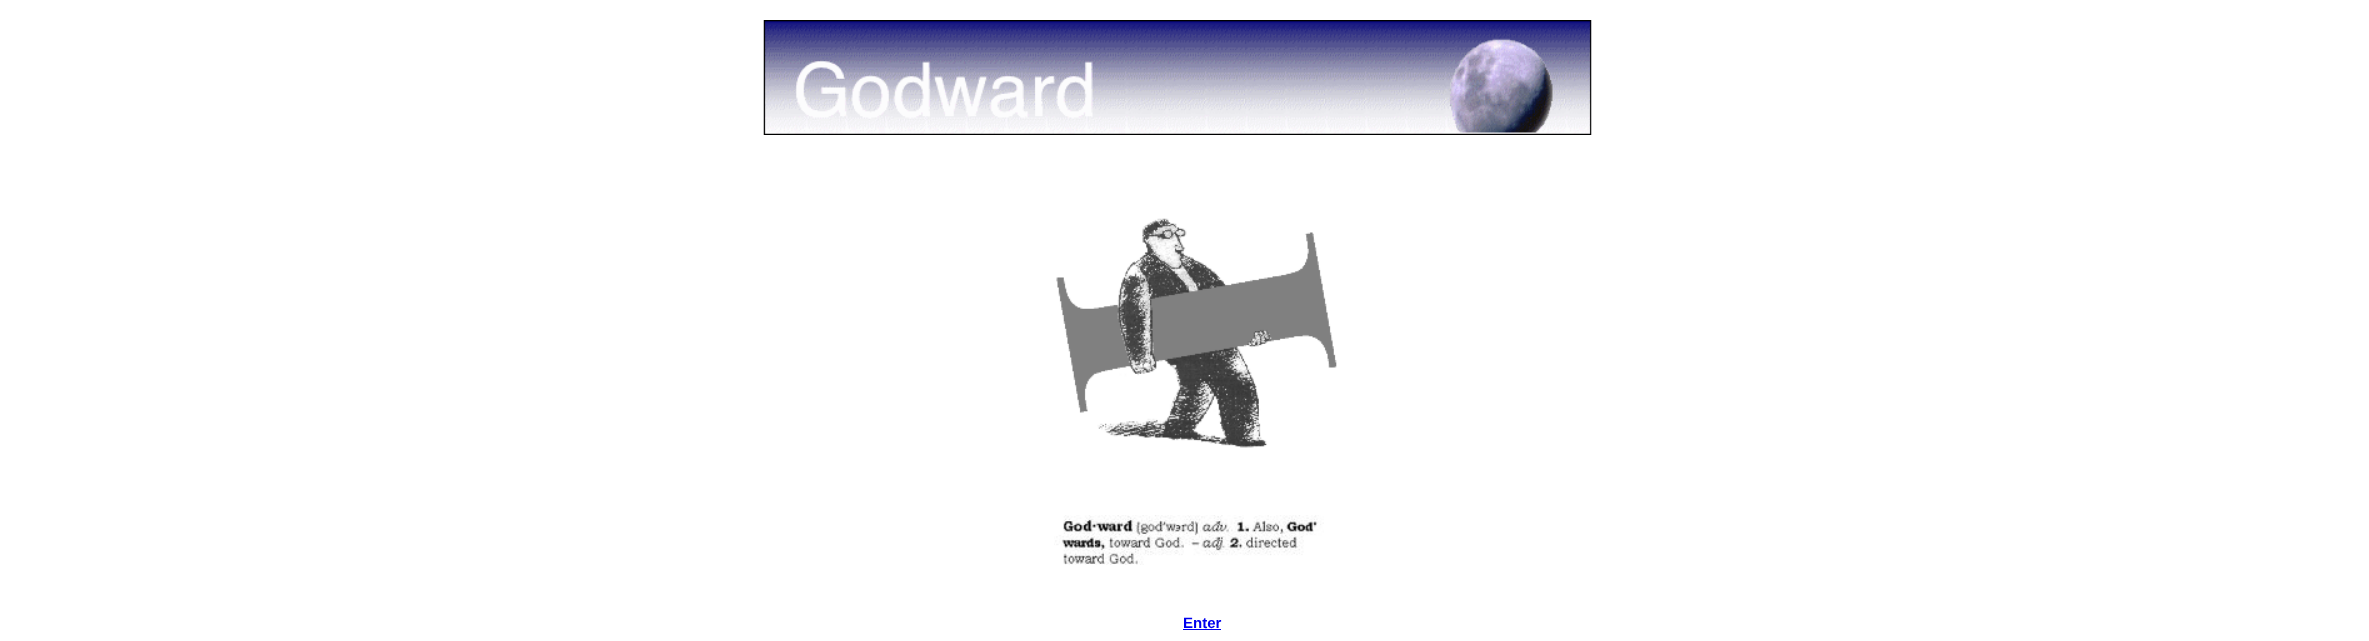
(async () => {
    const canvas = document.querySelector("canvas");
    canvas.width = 2369;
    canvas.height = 641;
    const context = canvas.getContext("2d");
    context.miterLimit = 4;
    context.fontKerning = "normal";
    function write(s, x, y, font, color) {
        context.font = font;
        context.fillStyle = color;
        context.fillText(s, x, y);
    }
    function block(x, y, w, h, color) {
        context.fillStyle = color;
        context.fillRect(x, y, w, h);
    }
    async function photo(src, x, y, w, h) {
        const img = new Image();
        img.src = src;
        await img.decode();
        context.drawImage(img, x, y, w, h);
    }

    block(0, 0, 2369, 641, "rgb(255, 255, 255)");
    await photo("media/1.png", 763, 20, 829, 115);
    await photo("media/2.png", 1056, 218, 281, 230);
    await photo("media/3.png", 1054, 515, 270, 50);
    write("Enter", 1183, 628, "bold 15px Liberation Sans", "rgb(0, 0, 238)");
    block(1183, 629, 38, 1, "rgb(0, 0, 238)");
})();
